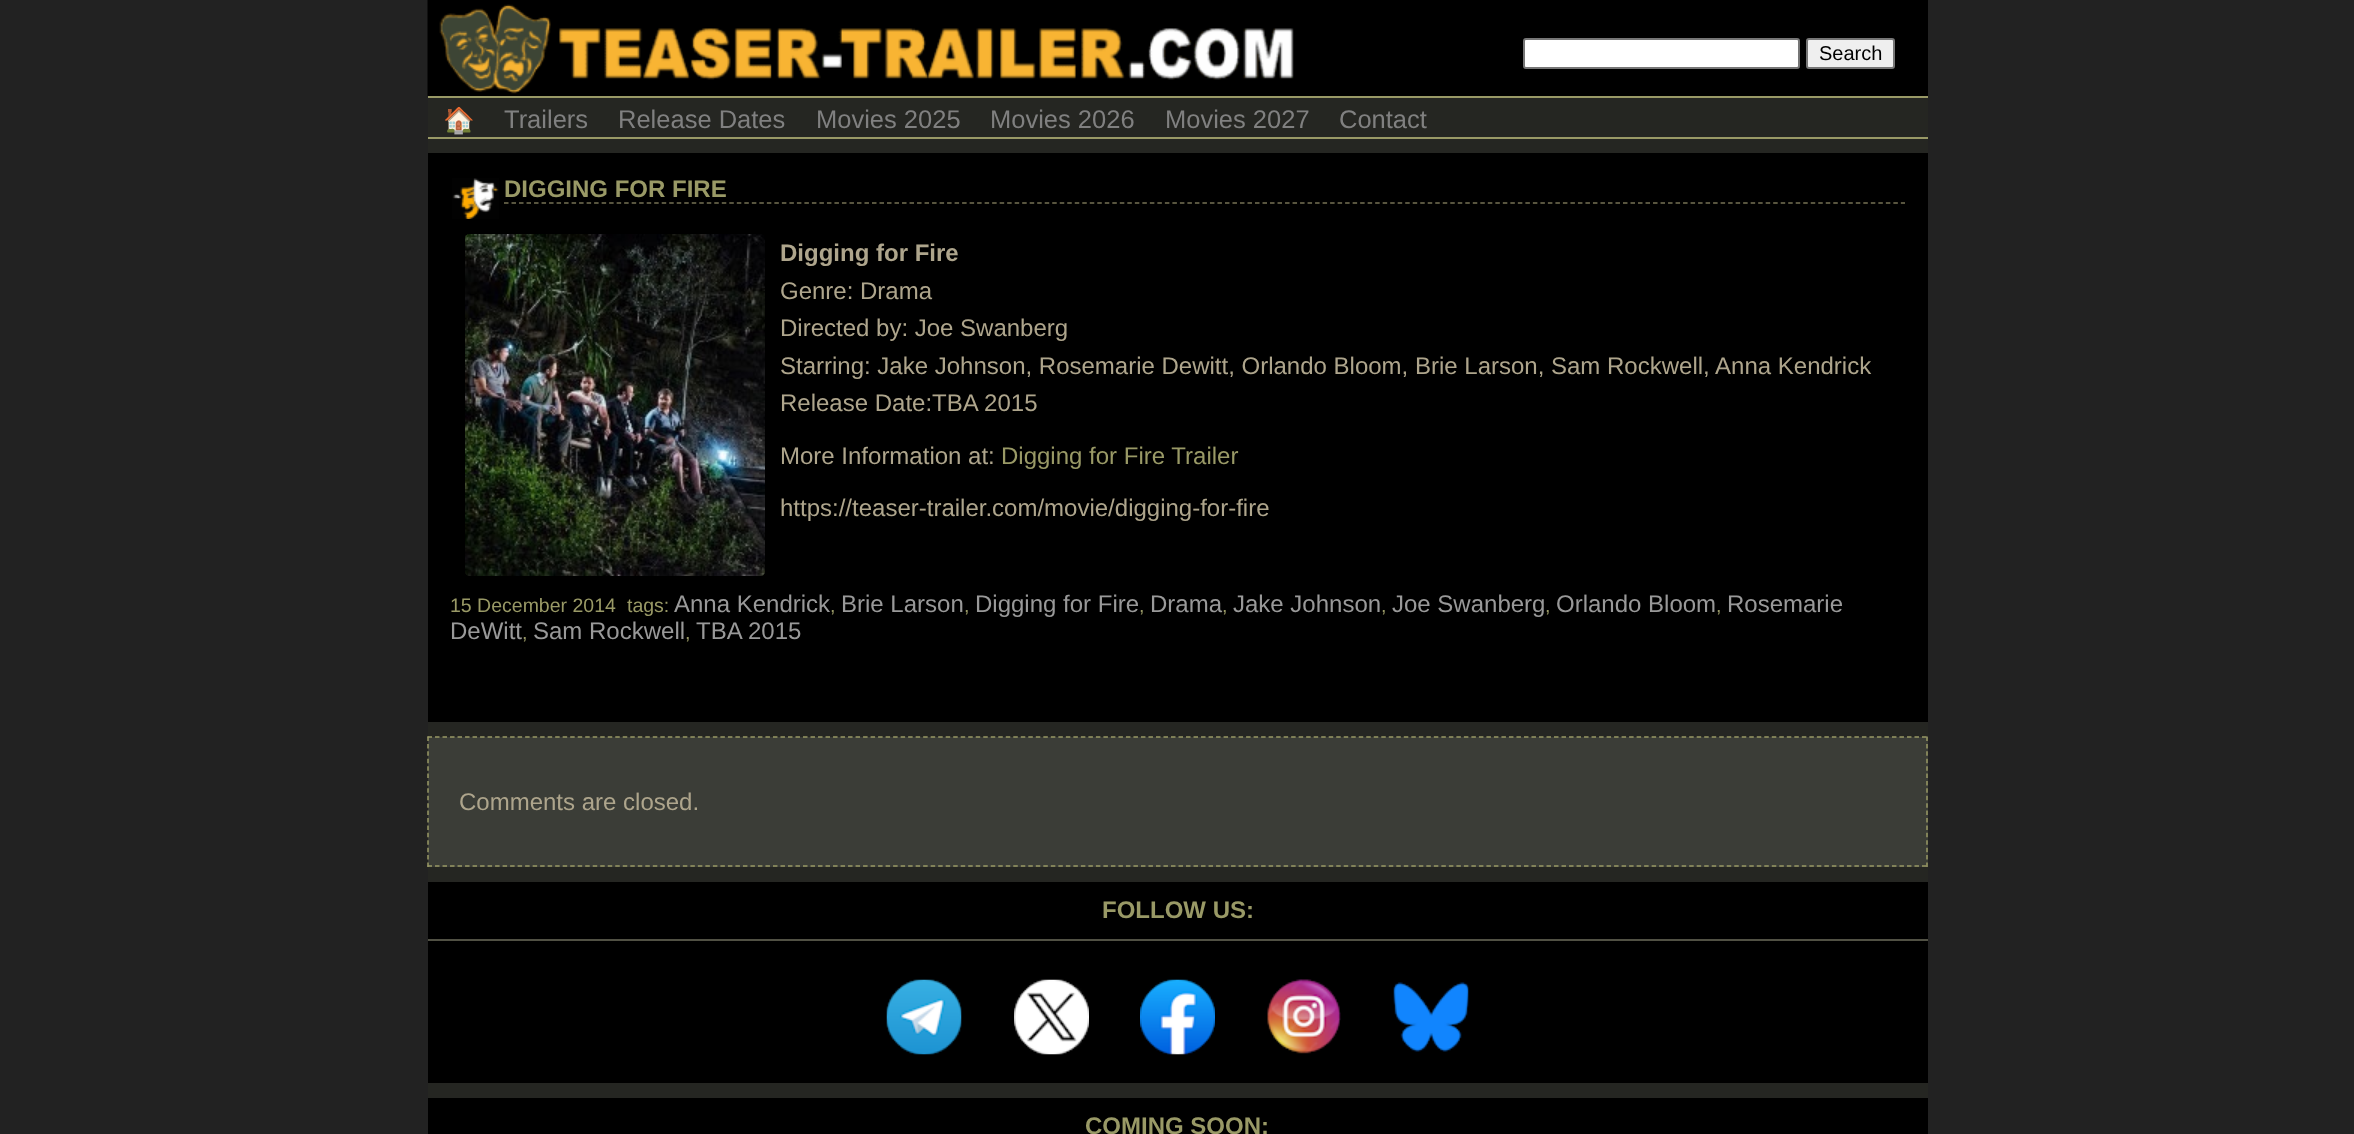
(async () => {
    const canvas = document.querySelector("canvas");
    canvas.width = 2354;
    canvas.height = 1134;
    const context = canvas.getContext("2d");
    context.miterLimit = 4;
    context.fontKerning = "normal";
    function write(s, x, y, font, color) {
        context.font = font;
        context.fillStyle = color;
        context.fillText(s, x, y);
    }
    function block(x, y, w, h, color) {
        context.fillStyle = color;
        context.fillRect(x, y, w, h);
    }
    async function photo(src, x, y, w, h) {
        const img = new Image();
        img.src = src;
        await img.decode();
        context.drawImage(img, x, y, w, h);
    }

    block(0, 0, 2354, 1134, "rgb(34, 34, 34)");
    block(428, 98, 1500, 1000, "rgb(37, 38, 34)");
    block(1294, 0, 634, 96, "rgb(0, 0, 0)");
    await photo("media/1.png", 427, 0, 867, 96);
    context.fillStyle = "rgb(255, 255, 255)";
    context.beginPath();
    context.roundRect(1524, 39, 275, 29, 2);
    context.fill();
    context.strokeStyle = "rgb(118, 118, 118)";
    context.lineWidth = 2;
    context.stroke();
    context.fillStyle = "rgb(239, 239, 239)";
    context.beginPath();
    context.roundRect(1807, 39, 87, 29, 2);
    context.fill();
    context.stroke();
    write("Search", 1819, 60, "20px Liberation Sans", "rgb(0, 0, 0)");
    block(428, 96, 1500, 2, "rgb(153, 153, 102)");
    block(428, 137, 1500, 2, "rgb(153, 153, 102)");
    write("🏠", 443, 129, "25.5px Noto Color Emoji", "rgb(128, 128, 128)");
    write("Trailers", 504, 128, "25.5px Liberation Sans", "rgb(128, 128, 128)");
    write("Release Dates", 618, 128, "25.5px Liberation Sans", "rgb(128, 128, 128)");
    write("Movies 2025", 816, 128, "25.5px Liberation Sans", "rgb(128, 128, 128)");
    write("Movies 2026", 990, 128, "25.5px Liberation Sans", "rgb(128, 128, 128)");
    write("Movies 2027", 1165, 128, "25.5px Liberation Sans", "rgb(128, 128, 128)");
    write("Contact", 1339, 128, "25.5px Liberation Sans", "rgb(128, 128, 128)");
    block(428, 153, 1500, 569, "rgb(0, 0, 0)");
    await photo("media/2.png", 452, 178, 47, 41);
    context.beginPath();
    context.moveTo(504, 203);
    context.lineTo(1905, 203);
    context.strokeStyle = "rgb(118, 113, 84)";
    context.lineWidth = 1.5;
    context.setLineDash([4.5, 3.01]);
    context.stroke();
    write("DIGGING FOR FIRE", 504, 197, "bold 24px Liberation Sans", "rgb(153, 153, 102)");
    await photo("media/3.png", 465, 234, 300, 342);
    write("Digging for Fire", 780, 261, "bold 24px Liberation Sans", "rgb(174, 165, 140)");
    write("Genre: Drama", 780, 299, "24px Liberation Sans", "rgb(174, 165, 140)");
    write("Directed by: Joe Swanberg", 780, 336, "24px Liberation Sans", "rgb(174, 165, 140)");
    write("Starring: Jake Johnson, Rosemarie Dewitt, Orlando Bloom, Brie Larson, Sam Rockwell, Anna Kendrick", 780, 374, "24px Liberation Sans", "rgb(174, 165, 140)");
    write("Release Date:TBA 2015", 780, 411, "24px Liberation Sans", "rgb(174, 165, 140)");
    write("More Information at:", 780, 464, "24px Liberation Sans", "rgb(174, 165, 140)");
    write("Digging for Fire Trailer", 1001, 464, "24px Liberation Sans", "rgb(153, 153, 102)");
    write("https://teaser-trailer.com/movie/digging-for-fire", 780, 516, "24px Liberation Sans", "rgb(174, 165, 140)");
    write("15 December 2014", 450, 612, "19.5px Liberation Sans", "rgb(153, 153, 102)");
    write("tags:", 627, 612, "19.5px Liberation Sans", "rgb(153, 153, 102)");
    write("Anna Kendrick", 674, 612, "24px Liberation Sans", "rgb(153, 153, 153)");
    write(",", 830, 612, "19.5px Liberation Sans", "rgb(153, 153, 102)");
    write("Brie Larson", 841, 612, "24px Liberation Sans", "rgb(153, 153, 153)");
    write(",", 964, 612, "19.5px Liberation Sans", "rgb(153, 153, 102)");
    write("Digging for Fire", 975, 612, "24px Liberation Sans", "rgb(153, 153, 153)");
    write(",", 1139, 612, "19.5px Liberation Sans", "rgb(153, 153, 102)");
    write("Drama", 1150, 612, "24px Liberation Sans", "rgb(153, 153, 153)");
    write(",", 1222, 612, "19.5px Liberation Sans", "rgb(153, 153, 102)");
    write("Jake Johnson", 1233, 612, "24px Liberation Sans", "rgb(153, 153, 153)");
    write(",", 1381, 612, "19.5px Liberation Sans", "rgb(153, 153, 102)");
    write("Joe Swanberg", 1392, 612, "24px Liberation Sans", "rgb(153, 153, 153)");
    write(",", 1545, 612, "19.5px Liberation Sans", "rgb(153, 153, 102)");
    write("Orlando Bloom", 1556, 612, "24px Liberation Sans", "rgb(153, 153, 153)");
    write(",", 1716, 612, "19.5px Liberation Sans", "rgb(153, 153, 102)");
    write("Rosemarie", 1727, 612, "24px Liberation Sans", "rgb(153, 153, 153)");
    write("DeWitt", 450, 639, "24px Liberation Sans", "rgb(153, 153, 153)");
    write(",", 522, 639, "19.5px Liberation Sans", "rgb(153, 153, 102)");
    write("Sam Rockwell", 533, 639, "24px Liberation Sans", "rgb(153, 153, 153)");
    write(",", 685, 639, "19.5px Liberation Sans", "rgb(153, 153, 102)");
    write("TBA 2015", 696, 639, "24px Liberation Sans", "rgb(153, 153, 153)");
    block(428, 737, 1500, 130, "rgb(59, 61, 55)");
    context.beginPath();
    context.moveTo(427.5, 737);
    context.lineTo(1927.5, 737);
    context.strokeStyle = "rgb(153, 153, 102)";
    context.stroke();
    context.beginPath();
    context.moveTo(1927, 736.5);
    context.lineTo(1927, 867);
    context.setLineDash([4.5, 2.91]);
    context.stroke();
    context.beginPath();
    context.moveTo(427.5, 866);
    context.lineTo(1927.5, 866);
    context.setLineDash([4.5, 3.01]);
    context.stroke();
    context.beginPath();
    context.moveTo(428, 736.5);
    context.lineTo(428, 867);
    context.setLineDash([4.5, 2.91]);
    context.stroke();
    write("Comments are closed.", 459, 810, "24px Liberation Sans", "rgb(174, 165, 140)");
    block(428, 882, 1500, 201, "rgb(0, 0, 0)");
    block(428, 939, 1500, 2, "rgb(81, 81, 68)");
    write("FOLLOW US:", 1102, 918, "bold 24px Liberation Sans", "rgb(153, 153, 102)");
    await photo("media/4.png", 886, 979, 76, 76);
    await photo("media/5.png", 1014, 979, 75, 76);
    await photo("media/6.png", 1140, 979, 75, 76);
    await photo("media/7.png", 1267, 979, 74, 75);
    await photo("media/8.png", 1393, 982, 76, 70);
    block(428, 1098, 1500, 36, "rgb(0, 0, 0)");
    write("COMING SOON:", 1085, 1134, "bold 24px Liberation Sans", "rgb(153, 153, 102)");
})();
